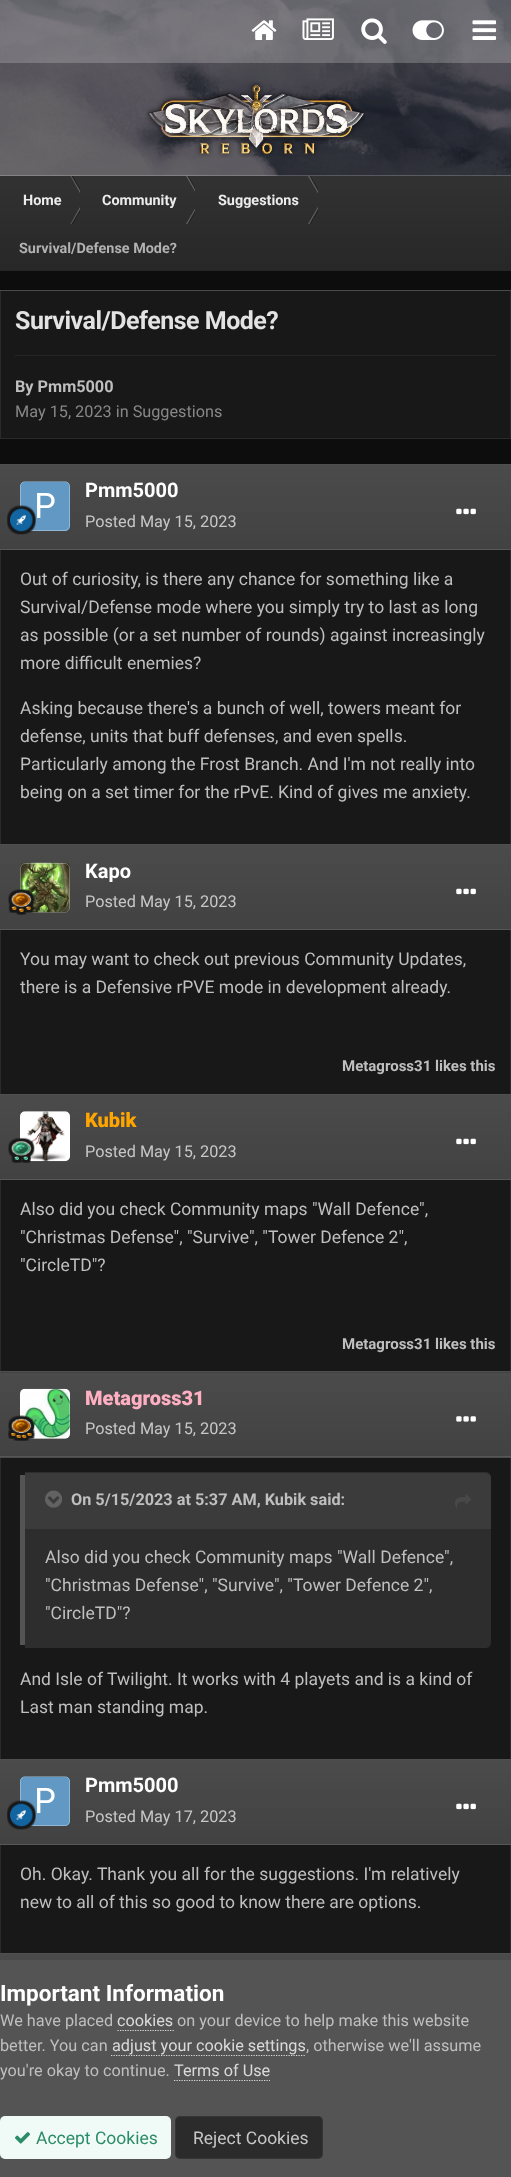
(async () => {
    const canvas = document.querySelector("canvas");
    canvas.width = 511;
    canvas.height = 2177;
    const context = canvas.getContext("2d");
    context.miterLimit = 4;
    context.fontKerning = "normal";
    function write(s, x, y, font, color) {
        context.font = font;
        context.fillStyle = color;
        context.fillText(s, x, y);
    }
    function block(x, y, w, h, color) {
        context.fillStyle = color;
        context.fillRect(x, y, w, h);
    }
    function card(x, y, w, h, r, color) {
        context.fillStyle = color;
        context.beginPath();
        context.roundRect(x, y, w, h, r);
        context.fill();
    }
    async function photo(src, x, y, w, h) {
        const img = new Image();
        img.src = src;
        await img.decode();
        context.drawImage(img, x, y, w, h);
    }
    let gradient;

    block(0, 0, 511, 2177, "rgb(13, 13, 13)");
    await photo("media/1.png", 0, 0, 511, 176);
    await photo("media/2.png", 0, 0, 511, 176);
    block(0, 0, 511, 63, "rgba(200, 200, 200, 0.3)");
    await photo("media/3.png", 251, 20, 26, 20);
    await photo("media/4.png", 302, 18, 32, 22);
    await photo("media/5.png", 361, 18, 26, 26);
    await photo("media/6.png", 412, 20, 32, 20);
    await photo("media/7.png", 472, 20, 25, 20);
    block(0, 175, 511, 1, "rgba(255, 255, 255, 0.2)");
    await photo("media/8.png", 146, 81, 219, 77);
    gradient = context.createLinearGradient(256, 176, 256, 271);
    gradient.addColorStop(0, "rgb(50, 50, 50)");
    gradient.addColorStop(1, "rgb(39, 39, 39)");
    context.fillStyle = gradient;
    context.fillRect(0, 176, 511, 95);
    context.save();
    context.beginPath();
    context.rect(0, 176, 80, 48);
    context.clip();
    context.fillStyle = "rgb(101, 101, 101)";
    context.beginPath();
    context.moveTo(70.5, 176);
    context.lineTo(71.5, 176);
    context.lineTo(85.5, 200);
    context.lineTo(84, 200);
    context.closePath();
    context.fill();
    context.fillStyle = "rgba(0, 0, 0, 0.3)";
    context.beginPath();
    context.moveTo(71.5, 176);
    context.lineTo(73, 176);
    context.lineTo(86.5, 200);
    context.lineTo(85.5, 200);
    context.closePath();
    context.fill();
    context.restore();
    write("Home", 23, 205, "bold 14.4px Roboto", "rgb(237, 237, 237)");
    context.save();
    context.beginPath();
    context.rect(0, 176, 80, 48);
    context.clip();
    context.fillStyle = "rgb(98, 98, 98)";
    context.beginPath();
    context.moveTo(70.5, 224);
    context.lineTo(71.5, 224);
    context.lineTo(85.5, 200);
    context.lineTo(84, 200);
    context.closePath();
    context.fill();
    context.fillStyle = "rgba(0, 0, 0, 0.3)";
    context.beginPath();
    context.moveTo(71.5, 224);
    context.lineTo(73, 224);
    context.lineTo(86.5, 200);
    context.lineTo(85.5, 200);
    context.closePath();
    context.fill();
    context.restore();
    context.save();
    context.beginPath();
    context.rect(80, 176, 115, 48);
    context.clip();
    context.fillStyle = "rgb(101, 101, 101)";
    context.beginPath();
    context.moveTo(186, 176);
    context.lineTo(187.5, 176);
    context.lineTo(201, 200);
    context.lineTo(200, 200);
    context.closePath();
    context.fill();
    context.fillStyle = "rgba(0, 0, 0, 0.3)";
    context.beginPath();
    context.moveTo(187.5, 176);
    context.lineTo(188.5, 176);
    context.lineTo(202.5, 200);
    context.lineTo(201, 200);
    context.closePath();
    context.fill();
    context.restore();
    write("Community", 102, 205, "bold 14.4px Roboto", "rgb(237, 237, 237)");
    context.save();
    context.beginPath();
    context.rect(80, 176, 115, 48);
    context.clip();
    context.fillStyle = "rgb(98, 98, 98)";
    context.beginPath();
    context.moveTo(186, 224);
    context.lineTo(187.5, 224);
    context.lineTo(201, 200);
    context.lineTo(200, 200);
    context.closePath();
    context.fill();
    context.fillStyle = "rgba(0, 0, 0, 0.3)";
    context.beginPath();
    context.moveTo(187.5, 224);
    context.lineTo(188.5, 224);
    context.lineTo(202.5, 200);
    context.lineTo(201, 200);
    context.closePath();
    context.fill();
    context.restore();
    context.save();
    context.beginPath();
    context.rect(195, 176, 123, 48);
    context.clip();
    context.fillStyle = "rgb(101, 101, 101)";
    context.beginPath();
    context.moveTo(308, 176);
    context.lineTo(309.5, 176);
    context.lineTo(323, 200);
    context.lineTo(322, 200);
    context.closePath();
    context.fill();
    context.fillStyle = "rgba(0, 0, 0, 0.3)";
    context.beginPath();
    context.moveTo(309.5, 176);
    context.lineTo(310.5, 176);
    context.lineTo(324.5, 200);
    context.lineTo(323, 200);
    context.closePath();
    context.fill();
    context.restore();
    write("Suggestions", 218, 205, "bold 14.4px Roboto", "rgb(237, 237, 237)");
    context.save();
    context.beginPath();
    context.rect(195, 176, 123, 48);
    context.clip();
    context.fillStyle = "rgb(98, 98, 98)";
    context.beginPath();
    context.moveTo(308, 224);
    context.lineTo(309.5, 224);
    context.lineTo(323, 200);
    context.lineTo(322, 200);
    context.closePath();
    context.fill();
    context.fillStyle = "rgba(0, 0, 0, 0.3)";
    context.beginPath();
    context.moveTo(309.5, 224);
    context.lineTo(310.5, 224);
    context.lineTo(324.5, 200);
    context.lineTo(323, 200);
    context.closePath();
    context.fill();
    context.restore();
    write("Survival/Defense Mode?", 19, 253, "bold 14.4px Roboto", "rgb(178, 178, 178)");
    block(0, 291, 511, 148, "rgb(24, 24, 24)");
    block(0, 290, 511, 1, "rgb(59, 59, 59)");
    context.strokeStyle = "rgba(255, 255, 255, 0.08)";
    context.strokeRect(0.5, 290.5, 510, 148);
    context.letterSpacing = "-0.5px";
    write("Survival/Defense Mode?", 15, 329, "bold 25px Roboto", "rgb(227, 227, 227)");
    block(15, 355, 481, 1, "rgb(37, 37, 37)");
    context.letterSpacing = "0px";
    write("By Pmm5000", 15, 392, "bold 16.25px Roboto", "rgb(191, 191, 191)");
    write("May 15, 2023 in Suggestions", 15, 417, "16.25px Roboto", "rgb(135, 135, 135)");
    block(0, 550, 511, 1403, "rgb(24, 24, 24)");
    context.strokeRect(0.5, 464.5, 510, 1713);
    gradient = context.createLinearGradient(256, 465, 256, 549);
    gradient.addColorStop(0, "rgb(75, 75, 75)");
    gradient.addColorStop(1, "rgb(66, 66, 66)");
    context.fillStyle = gradient;
    context.fillRect(0, 465, 511, 84);
    block(0, 464, 511, 1, "rgb(79, 79, 79)");
    block(0, 549, 511, 1, "rgb(87, 87, 87)");
    card(20, 481, 50, 50, 5, "rgb(24, 24, 24)");
    await photo("media/9.png", 20, 481, 50, 50);
    context.beginPath();
    context.roundRect(20.5, 481.5, 49, 49, 4.5);
    context.strokeStyle = "rgba(255, 255, 255, 0.3)";
    context.stroke();
    await photo("media/10.png", 7, 505, 29, 30);
    write("Pmm5000", 85, 497, "bold 20px Roboto", "rgb(255, 255, 255)");
    write("Posted May 15, 2023", 85, 527, "16.25px Roboto", "rgb(199, 199, 199)");
    await photo("media/11.png", 456, 508, 20, 7);
    write("Out of curiosity, is there any chance for something like a", 20, 585, "17.5px Roboto", "rgb(191, 191, 191)");
    write("Survival/Defense mode where you simply try to last as long", 20, 613, "17.5px Roboto", "rgb(191, 191, 191)");
    write("as possible (or a set number of rounds) against increasingly", 20, 641, "17.5px Roboto", "rgb(191, 191, 191)");
    write("more difficult enemies?", 20, 669, "17.5px Roboto", "rgb(191, 191, 191)");
    write("Asking because there's a bunch of well, towers meant for", 20, 714, "17.5px Roboto", "rgb(191, 191, 191)");
    write("defense, units that buff defenses, and even spells.", 20, 742, "17.5px Roboto", "rgb(191, 191, 191)");
    write("Particularly among the Frost Branch. And I'm not really into", 20, 770, "17.5px Roboto", "rgb(191, 191, 191)");
    write("being on a set timer for the rPvE. Kind of gives me anxiety.", 20, 798, "17.5px Roboto", "rgb(191, 191, 191)");
    gradient = context.createLinearGradient(256, 845, 256, 929);
    gradient.addColorStop(0, "rgb(75, 75, 75)");
    gradient.addColorStop(1, "rgb(66, 66, 66)");
    context.fillStyle = gradient;
    context.fillRect(0, 845, 511, 84);
    block(0, 844, 511, 1, "rgb(79, 79, 79)");
    block(0, 929, 511, 1, "rgb(87, 87, 87)");
    card(20, 863, 50, 50, 5, "rgb(24, 24, 24)");
    await photo("media/12.png", 20, 862, 50, 51);
    context.beginPath();
    context.roundRect(20.5, 863.5, 49, 49, 4.5);
    context.stroke();
    await photo("media/13.png", 8, 889, 27, 26);
    write("Kapo", 85, 878, "bold 20px Roboto", "rgb(255, 255, 255)");
    write("Posted May 15, 2023", 85, 907, "16.25px Roboto", "rgb(199, 199, 199)");
    await photo("media/11.png", 456, 888, 20, 7);
    write("You may want to check out previous Community Updates,", 20, 965, "17.5px Roboto", "rgb(191, 191, 191)");
    write("there is a Defensive rPVE mode in development already.", 20, 993, "17.5px Roboto", "rgb(191, 191, 191)");
    write("Metagross31 likes this", 342, 1071, "bold 15px Roboto", "rgb(191, 191, 191)");
    gradient = context.createLinearGradient(256, 1095, 256, 1179);
    gradient.addColorStop(0, "rgb(75, 75, 75)");
    gradient.addColorStop(1, "rgb(66, 66, 66)");
    context.fillStyle = gradient;
    context.fillRect(0, 1095, 511, 84);
    block(0, 1094, 511, 1, "rgb(79, 79, 79)");
    block(0, 1179, 511, 1, "rgb(87, 87, 87)");
    card(20, 1111, 50, 50, 5, "rgb(24, 24, 24)");
    await photo("media/14.png", 20, 1111, 50, 51);
    context.beginPath();
    context.roundRect(20.5, 1111.5, 49, 49, 4.5);
    context.stroke();
    await photo("media/15.png", 8, 1137, 27, 26);
    write("Kubik", 85, 1127, "900 20px Roboto", "rgb(255, 165, 0)");
    write("Posted May 15, 2023", 85, 1157, "16.25px Roboto", "rgb(199, 199, 199)");
    await photo("media/11.png", 456, 1138, 20, 7);
    write("Also did you check Community maps \"Wall Defence\",", 20, 1215, "17.5px Roboto", "rgb(191, 191, 191)");
    write("\"Christmas Defense\", \"Survive\", \"Tower Defence 2\",", 20, 1243, "17.5px Roboto", "rgb(191, 191, 191)");
    write("\"CircleTD\"?", 20, 1271, "17.5px Roboto", "rgb(191, 191, 191)");
    write("Metagross31 likes this", 342, 1349, "bold 15px Roboto", "rgb(191, 191, 191)");
    block(0, 1372, 511, 1, "rgb(66, 66, 66)");
    gradient = context.createLinearGradient(256, 1373, 256, 1456);
    gradient.addColorStop(0, "rgb(75, 75, 75)");
    gradient.addColorStop(1, "rgb(66, 66, 66)");
    context.fillStyle = gradient;
    context.fillRect(0, 1373, 511, 83);
    gradient = context.createLinearGradient(256, 1456, 256, 1540);
    gradient.addColorStop(0, "rgb(75, 75, 75)");
    gradient.addColorStop(1, "rgb(66, 66, 66)");
    context.fillStyle = gradient;
    context.fillRect(0, 1457, 511, 1);
    block(0, 1371, 511, 1, "rgb(79, 79, 79)");
    block(0, 1456, 511, 1, "rgb(87, 87, 87)");
    card(20, 1389, 50, 50, 5, "rgb(24, 24, 24)");
    await photo("media/16.png", 20, 1388, 50, 51);
    context.beginPath();
    context.roundRect(20.5, 1389.5, 49, 49, 4.5);
    context.stroke();
    await photo("media/17.png", 8, 1415, 27, 26);
    write("Metagross31", 85, 1405, "900 20px Roboto", "rgb(255, 175, 194)");
    write("Posted May 15, 2023", 85, 1434, "16.25px Roboto", "rgb(199, 199, 199)");
    await photo("media/18.png", 456, 1416, 20, 6);
    context.fillStyle = "rgb(45, 45, 45)";
    context.beginPath();
    context.moveTo(25, 1472);
    context.lineTo(486, 1472);
    context.bezierCurveTo(489, 1472, 491, 1475, 491, 1478);
    context.lineTo(491, 1642);
    context.bezierCurveTo(491, 1645, 489, 1648, 486, 1648);
    context.lineTo(25, 1648);
    context.closePath();
    context.fill();
    block(20, 1475, 5, 170, "rgb(84, 84, 84)");
    context.fillStyle = "rgb(59, 59, 59)";
    context.beginPath();
    context.roundRect(25, 1473, 466, 56, [0, 5, 0, 0]);
    context.fill();
    await photo("media/19.png", 45, 1490, 18, 18);
    write("On 5/15/2023 at 5:37 AM, Kubik said:", 71, 1505, "bold 16.25px Roboto", "rgb(191, 191, 191)");
    await photo("media/20.png", 455, 1494, 16, 15);
    write("Also did you check Community maps \"Wall Defence\",", 45, 1563, "17.5px Roboto", "rgb(191, 191, 191)");
    write("\"Christmas Defense\", \"Survive\", \"Tower Defence 2\",", 45, 1591, "17.5px Roboto", "rgb(191, 191, 191)");
    write("\"CircleTD\"?", 45, 1619, "17.5px Roboto", "rgb(191, 191, 191)");
    write("And Isle of Twilight. It works with 4 playets and is a kind of", 20, 1685, "17.5px Roboto", "rgb(191, 191, 191)");
    write("Last man standing map.", 20, 1713, "17.5px Roboto", "rgb(191, 191, 191)");
    gradient = context.createLinearGradient(256, 1760, 256, 1844);
    gradient.addColorStop(0, "rgb(75, 75, 75)");
    gradient.addColorStop(1, "rgb(66, 66, 66)");
    context.fillStyle = gradient;
    context.fillRect(0, 1760, 511, 84);
    block(0, 1759, 511, 1, "rgb(79, 79, 79)");
    block(0, 1844, 511, 1, "rgb(87, 87, 87)");
    card(20, 1776, 50, 50, 5, "rgb(24, 24, 24)");
    await photo("media/21.png", 20, 1776, 50, 50);
    context.beginPath();
    context.roundRect(20.5, 1776.5, 49, 49, 4.5);
    context.stroke();
    await photo("media/10.png", 7, 1800, 29, 30);
    write("Pmm5000", 85, 1792, "bold 20px Roboto", "rgb(255, 255, 255)");
    write("Posted May 17, 2023", 85, 1822, "16.25px Roboto", "rgb(199, 199, 199)");
    await photo("media/11.png", 456, 1803, 20, 7);
    write("Oh. Okay. Thank you all for the suggestions. I'm relatively", 20, 1880, "17.5px Roboto", "rgb(191, 191, 191)");
    write("new to all of this so good to know there are options.", 20, 1908, "17.5px Roboto", "rgb(191, 191, 191)");
    gradient = context.createLinearGradient(256, 1954, 256, 2038);
    gradient.addColorStop(0, "rgb(75, 75, 75)");
    gradient.addColorStop(1, "rgb(66, 66, 66)");
    context.fillStyle = gradient;
    context.fillRect(0, 1954, 511, 6);
    block(0, 1953, 511, 1, "rgb(79, 79, 79)");
    block(0, 1960, 511, 217, "rgb(84, 84, 84)");
    write("Important Information", 0, 2001, "bold 22.5px Roboto", "rgb(255, 255, 255)");
    write("We have placed", 0, 2026, "16.25px Roboto", "rgb(191, 191, 191)");
    write("cookies", 117, 2026, "16.25px Roboto", "rgb(218, 218, 218)");
    context.beginPath();
    context.moveTo(117.5, 2030.5);
    context.lineTo(174, 2030.5);
    context.strokeStyle = "rgb(218, 218, 218)";
    context.lineWidth = 1.2;
    context.setLineDash([1.25, 1.25]);
    context.stroke();
    write("on your device to help make this website", 177, 2026, "16.25px Roboto", "rgb(191, 191, 191)");
    write("better. You can", 0, 2051, "16.25px Roboto", "rgb(191, 191, 191)");
    context.beginPath();
    context.moveTo(111, 2055.5);
    context.lineTo(305, 2055.5);
    context.stroke();
    write("adjust your cookie settings", 112, 2051, "16.25px Roboto", "rgb(218, 218, 218)");
    write(", otherwise we'll assume", 306, 2051, "16.25px Roboto", "rgb(191, 191, 191)");
    write("you're okay to continue.", 0, 2076, "16.25px Roboto", "rgb(191, 191, 191)");
    write("Terms of Use", 174, 2076, "16.25px Roboto", "rgb(218, 218, 218)");
    context.beginPath();
    context.moveTo(174, 2080.5);
    context.lineTo(270, 2080.5);
    context.stroke();
    card(0, 2116, 171, 43, 5, "rgb(240, 250, 246)");
    await photo("media/22.png", 15, 2132, 15, 12);
    write("Accept Cookies", 36, 2144, "17.5px Roboto", "rgb(44, 140, 105)");
    card(175, 2116, 148, 43, 5, "rgb(43, 43, 43)");
    context.beginPath();
    context.roundRect(175.5, 2116.5, 147, 42, 4.5);
    context.strokeStyle = "rgba(204, 204, 204, 0.07)";
    context.lineWidth = 1;
    context.setLineDash([]);
    context.stroke();
    write("Reject Cookies", 193, 2144, "17.5px Roboto", "rgb(199, 199, 199)");
})();
